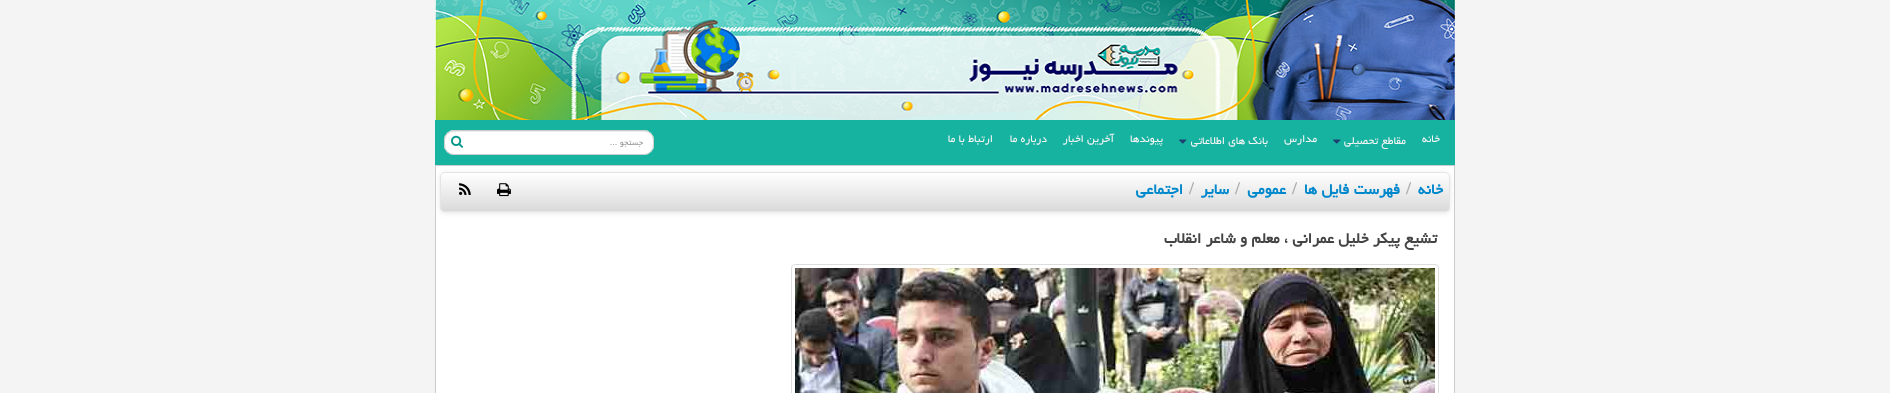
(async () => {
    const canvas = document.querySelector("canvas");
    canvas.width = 1890;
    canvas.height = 393;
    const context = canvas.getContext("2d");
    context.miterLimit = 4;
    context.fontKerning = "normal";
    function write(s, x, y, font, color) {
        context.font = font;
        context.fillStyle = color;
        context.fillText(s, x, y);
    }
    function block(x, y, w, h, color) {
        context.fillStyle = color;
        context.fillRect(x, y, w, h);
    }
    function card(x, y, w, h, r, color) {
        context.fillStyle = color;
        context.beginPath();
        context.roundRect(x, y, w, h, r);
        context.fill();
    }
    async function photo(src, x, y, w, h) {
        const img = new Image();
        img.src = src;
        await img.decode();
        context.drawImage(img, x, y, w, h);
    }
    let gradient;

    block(0, 0, 1890, 393, "rgb(244, 244, 244)");
    await photo("media/1.png", 435, 0, 1020, 120);
    block(435, 120, 1020, 45, "rgb(23, 179, 161)");
    context.direction = "rtl";
    write("خانه", 1440, 142, "13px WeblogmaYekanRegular", "rgb(244, 244, 244)");
    write("مقاطع تحصیلی", 1406, 144, "13px WeblogmaYekanRegular", "rgb(244, 244, 244)");
    await photo("media/2.png", 1333, 139, 8, 5);
    write("مدارس", 1317, 142, "13px WeblogmaYekanRegular", "rgb(244, 244, 244)");
    write("بانک های اطلاعاتی", 1268, 144, "13px WeblogmaYekanRegular", "rgb(244, 244, 244)");
    await photo("media/2.png", 1179, 139, 8, 5);
    write("پیوندها", 1163, 142, "13px WeblogmaYekanRegular", "rgb(244, 244, 244)");
    write("آخرین اخبار", 1114, 142, "13px WeblogmaYekanRegular", "rgb(244, 244, 244)");
    write("درباره ما", 1047, 142, "13px WeblogmaYekanRegular", "rgb(244, 244, 244)");
    write("ارتباط با ما", 993, 142, "13px WeblogmaYekanRegular", "rgb(244, 244, 244)");
    card(444, 130, 210, 25, 10, "rgb(255, 255, 255)");
    context.fillStyle = "rgb(236, 236, 236)";
    context.beginPath();
    context.moveTo(454, 132);
    context.lineTo(644, 132);
    context.bezierCurveTo(649, 132, 653, 136, 653, 141);
    context.lineTo(653, 140);
    context.bezierCurveTo(653, 135, 649, 131, 644, 131);
    context.lineTo(454, 131);
    context.bezierCurveTo(449, 131, 445, 135, 445, 140);
    context.lineTo(445, 141);
    context.bezierCurveTo(445, 136, 449, 132, 454, 132);
    context.closePath();
    context.fill();
    context.beginPath();
    context.roundRect(444.5, 130.5, 209, 24, 9.5);
    context.strokeStyle = "rgb(204, 204, 204)";
    context.stroke();
    write("جستجو ...", 643, 145, "10px WeblogmaYekanRegular", "rgb(153, 153, 153)");
    await photo("media/3.png", 451, 135, 12, 13);
    context.strokeRect(435.5, 165.5, 1019, 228);
    block(436, 166, 1018, 227, "rgb(255, 255, 255)");
    context.fillStyle = "rgba(0, 0, 0, 0.1)";
    context.filter = "blur(2.5px)";
    context.beginPath();
    context.roundRect(440, 173, 1010, 40, 5);
    context.fill();
    context.filter = "none";
    context.save();
    context.beginPath();
    context.roundRect(440, 172, 1010, 40, 5);
    context.clip();
    gradient = context.createLinearGradient(945, 173, 945, 211);
    gradient.addColorStop(0, "rgb(255, 255, 255)");
    gradient.addColorStop(1, "rgb(218, 218, 218)");
    context.fillStyle = gradient;
    context.fillRect(440, 173, 1010, 38);
    context.restore();
    context.beginPath();
    context.roundRect(440.5, 172.5, 1009, 39, 4.5);
    context.strokeStyle = "rgb(229, 229, 229)";
    context.stroke();
    write("خانه", 1443, 194, "bold 18px WeblogmaYekanRegular", "rgb(0, 136, 204)");
    context.direction = "ltr";
    write("/", 1406, 194, "bold 18px Liberation Serif", "rgb(170, 170, 170)");
    context.direction = "rtl";
    write("فهرست فایل ها", 1400, 194, "bold 18px WeblogmaYekanRegular", "rgb(0, 136, 204)");
    context.direction = "ltr";
    write("/", 1292, 194, "bold 18px Liberation Serif", "rgb(170, 170, 170)");
    context.direction = "rtl";
    write("عمومی", 1286, 194, "bold 18px WeblogmaYekanRegular", "rgb(0, 136, 204)");
    context.direction = "ltr";
    write("/", 1235, 194, "bold 18px Liberation Serif", "rgb(170, 170, 170)");
    context.direction = "rtl";
    write("سایر", 1229, 194, "bold 18px WeblogmaYekanRegular", "rgb(0, 136, 204)");
    context.direction = "ltr";
    write("/", 1189, 194, "bold 18px Liberation Serif", "rgb(170, 170, 170)");
    context.direction = "rtl";
    write("اجتماعی", 1183, 194, "bold 18px WeblogmaYekanRegular", "rgb(0, 136, 204)");
    await photo("media/4.png", 497, 183, 14, 14);
    await photo("media/5.png", 459, 183, 12, 12);
    write("تشیع پیکر خلیل عمرانی ، معلم و شاعر انقلاب", 1437, 243, "bold 18px WeblogmaYekanRegular", "rgb(68, 68, 68)");
    context.beginPath();
    context.roundRect(791.5, 264.5, 647, 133, 3.5);
    context.strokeStyle = "rgb(221, 221, 221)";
    context.stroke();
    await photo("media/6.png", 795, 268, 640, 125);
})();
